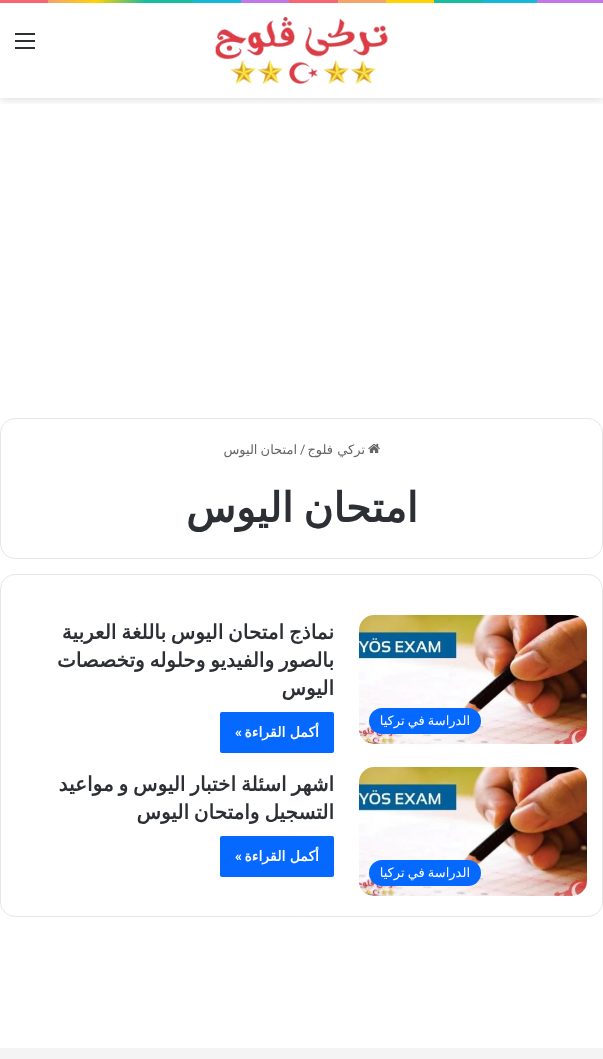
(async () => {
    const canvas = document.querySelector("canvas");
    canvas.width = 603;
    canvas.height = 1059;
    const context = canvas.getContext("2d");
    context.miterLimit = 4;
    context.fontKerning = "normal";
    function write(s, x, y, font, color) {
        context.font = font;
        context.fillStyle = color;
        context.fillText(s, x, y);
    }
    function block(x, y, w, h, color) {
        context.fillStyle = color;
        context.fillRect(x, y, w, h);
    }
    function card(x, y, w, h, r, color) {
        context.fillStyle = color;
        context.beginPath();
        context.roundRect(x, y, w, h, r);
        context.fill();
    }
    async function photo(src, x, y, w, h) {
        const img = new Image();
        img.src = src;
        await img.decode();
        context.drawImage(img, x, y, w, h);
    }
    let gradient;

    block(0, 0, 603, 1059, "rgb(255, 255, 255)");
    gradient = context.createLinearGradient(0, 1.5, 603, 1.5);
    gradient.addColorStop(0, "rgb(247, 101, 112)");
    gradient.addColorStop(0.08, "rgb(247, 101, 112)");
    gradient.addColorStop(0.08, "rgb(243, 164, 107)");
    gradient.addColorStop(0.16, "rgb(255, 210, 5)");
    gradient.addColorStop(0.24, "rgb(27, 188, 155)");
    gradient.addColorStop(0.32, "rgb(27, 188, 155)");
    gradient.addColorStop(0.32, "rgb(20, 185, 213)");
    gradient.addColorStop(0.4, "rgb(20, 185, 213)");
    gradient.addColorStop(0.4, "rgb(195, 119, 228)");
    gradient.addColorStop(0.48, "rgb(195, 119, 228)");
    gradient.addColorStop(0.48, "rgb(247, 101, 112)");
    gradient.addColorStop(0.56, "rgb(247, 101, 112)");
    gradient.addColorStop(0.56, "rgb(243, 164, 107)");
    gradient.addColorStop(0.64, "rgb(243, 164, 107)");
    gradient.addColorStop(0.64, "rgb(255, 210, 5)");
    gradient.addColorStop(0.72, "rgb(255, 210, 5)");
    gradient.addColorStop(0.72, "rgb(27, 188, 155)");
    gradient.addColorStop(0.8, "rgb(27, 188, 155)");
    gradient.addColorStop(0.8, "rgb(20, 185, 213)");
    gradient.addColorStop(0.89, "rgb(20, 185, 213)");
    gradient.addColorStop(0.89, "rgb(195, 119, 228)");
    gradient.addColorStop(1, "rgb(195, 119, 228)");
    context.fillStyle = gradient;
    context.fillRect(0, 0, 603, 3);
    context.save();
    context.beginPath();
    context.rect(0, 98, 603, 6);
    context.clip();
    context.fillStyle = "rgba(0, 0, 0, 0.1)";
    context.filter = "blur(3.5px)";
    context.beginPath();
    context.rect(0, 6, 603, 95);
    context.fill();
    context.filter = "none";
    context.restore();
    await photo("media/1.png", 215, 17, 173, 67);
    block(15, 40, 20, 2, "rgb(44, 47, 52)");
    block(15, 33, 20, 2, "rgb(44, 47, 52)");
    block(15, 47, 20, 2, "rgb(44, 47, 52)");
    context.beginPath();
    context.roundRect(0.5, 418.5, 602, 140, 14.5);
    context.strokeStyle = "rgb(230, 230, 230)";
    context.stroke();
    await photo("media/2.png", 368, 443, 12, 11);
    context.direction = "rtl";
    write("تركي فلوج", 365, 454, "13px DejaVu Sans", "rgb(102, 102, 102)");
    context.direction = "ltr";
    write("/", 300, 454, "13px Roboto", "rgb(102, 102, 102)");
    context.wordSpacing = "-1px";
    context.direction = "rtl";
    write("امتحان اليوس", 297, 454, "13px DejaVu Sans", "rgb(102, 102, 102)");
    context.wordSpacing = "-3px";
    write("امتحان اليوس", 418, 522, "bold 41px DejaVu Sans", "rgb(44, 47, 52)");
    context.beginPath();
    context.roundRect(0.5, 574.5, 602, 342, 14.5);
    context.stroke();
    await photo("media/3.png", 359, 615, 228, 129);
    card(369, 708, 112, 26, 13, "rgb(6, 105, 255)");
    context.wordSpacing = "-1px";
    write("الدراسة في تركيا", 470, 725, "13px DejaVu Sans", "rgb(255, 255, 255)");
    context.wordSpacing = "-1.5px";
    write("نماذج امتحان اليوس باللغة العربية", 334, 639, "bold 20px DejaVu Sans", "rgb(44, 47, 52)");
    write("بالصور والفيديو وحلوله وتخصصات", 334, 667, "bold 20px DejaVu Sans", "rgb(44, 47, 52)");
    context.wordSpacing = "0px";
    write("اليوس", 334, 695, "bold 20px DejaVu Sans", "rgb(44, 47, 52)");
    card(220, 712, 114, 41, 2, "rgb(6, 105, 255)");
    write("أكمل القراءة", 319, 737, "bold 14px DejaVu Sans", "rgb(255, 255, 255)");
    write("»", 242, 737, "600 14px Roboto", "rgb(255, 255, 255)");
    context.wordSpacing = "-1.5px";
    write("اشهر اسئلة اختبار اليوس و مواعيد", 334, 791, "bold 20px DejaVu Sans", "rgb(44, 47, 52)");
    write("التسجيل وامتحان اليوس", 334, 819, "bold 20px DejaVu Sans", "rgb(44, 47, 52)");
    card(220, 836, 114, 41, 2, "rgb(6, 105, 255)");
    context.wordSpacing = "0px";
    write("أكمل القراءة", 319, 861, "bold 14px DejaVu Sans", "rgb(255, 255, 255)");
    write("»", 242, 861, "600 14px Roboto", "rgb(255, 255, 255)");
    await photo("media/4.png", 359, 767, 228, 129);
    card(369, 860, 112, 26, 13, "rgb(6, 105, 255)");
    context.wordSpacing = "-1px";
    write("الدراسة في تركيا", 470, 877, "13px DejaVu Sans", "rgb(255, 255, 255)");
    block(0, 1048, 603, 11, "rgb(244, 244, 244)");
})();
